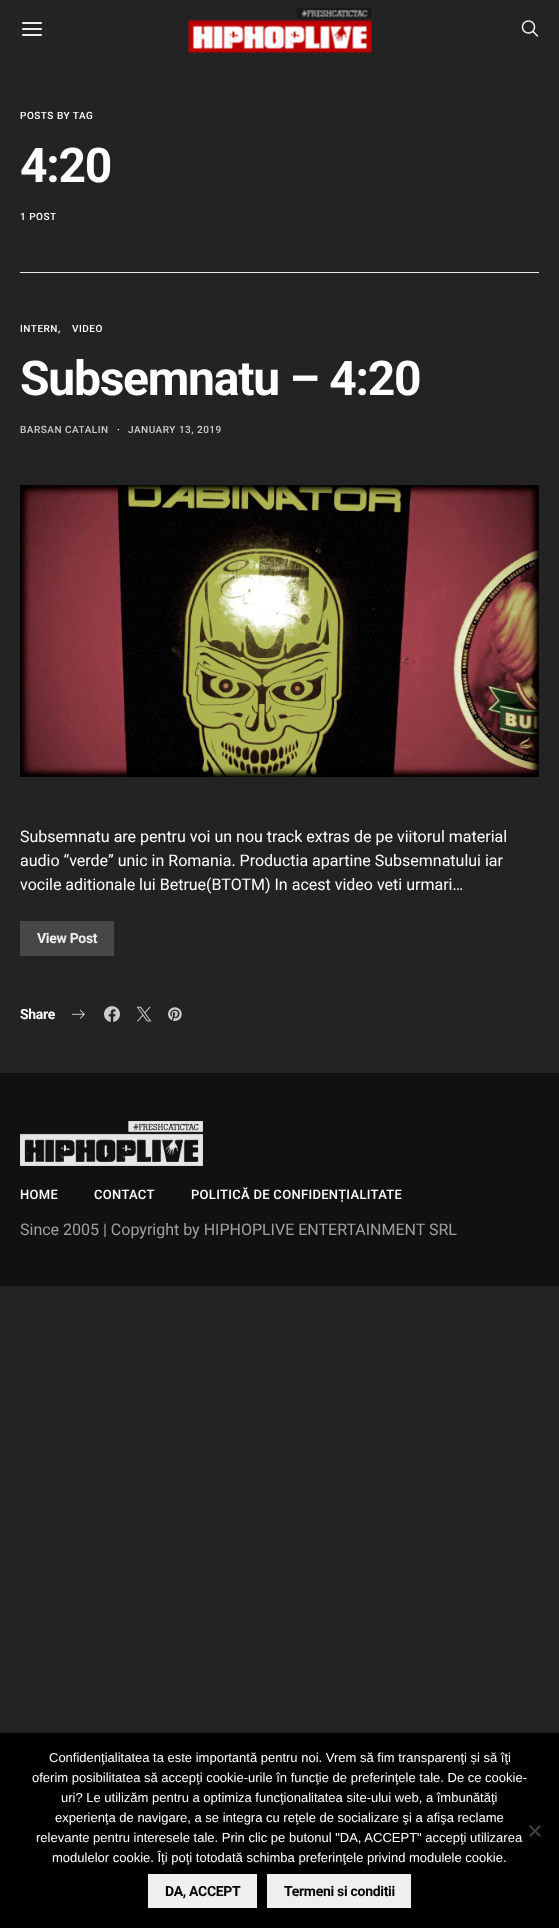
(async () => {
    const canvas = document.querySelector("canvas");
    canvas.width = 559;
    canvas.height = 1928;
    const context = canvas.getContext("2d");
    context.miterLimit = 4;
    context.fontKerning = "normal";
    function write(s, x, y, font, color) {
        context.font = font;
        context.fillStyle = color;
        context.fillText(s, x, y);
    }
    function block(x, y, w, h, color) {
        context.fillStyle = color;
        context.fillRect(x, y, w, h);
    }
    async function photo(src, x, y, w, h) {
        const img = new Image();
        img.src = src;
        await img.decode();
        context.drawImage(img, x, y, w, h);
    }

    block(0, 0, 559, 1928, "rgb(35, 35, 35)");
    block(0, 59, 559, 1, "rgb(43, 43, 43)");
    await photo("media/1.png", 22, 22, 20, 14);
    await photo("media/2.png", 188, 7, 184, 46);
    await photo("media/3.png", 521, 20, 18, 17);
    context.letterSpacing = "0.5px";
    write("POSTS BY TAG", 20, 119, "500 10px Roboto", "rgb(255, 255, 255)");
    context.letterSpacing = "-1.25px";
    write("4:20", 20, 182, "bold 48px Roboto", "rgb(255, 255, 255)");
    context.letterSpacing = "0.5px";
    write("1 POST", 20, 220, "500 10px Roboto", "rgb(255, 255, 255)");
    block(20, 272, 519, 1, "rgb(233, 236, 239)");
    write("INTERN,", 20, 332, "500 10px Roboto", "rgb(255, 255, 255)");
    write("VIDEO", 72, 332, "500 10px Roboto", "rgb(255, 255, 255)");
    context.letterSpacing = "-1.25px";
    write("Subsemnatu – 4:20", 20, 395, "bold 48px Roboto", "rgb(255, 255, 255)");
    context.letterSpacing = "0.5px";
    write("BARSAN CATALIN", 20, 433, "500 10px Roboto", "rgb(204, 204, 204)");
    write("·", 117, 433, "500 10px Roboto", "rgb(255, 255, 255)");
    write("JANUARY 13, 2019", 128, 433, "500 10px Roboto", "rgb(204, 204, 204)");
    await photo("media/4.png", 20, 485, 519, 292);
    context.letterSpacing = "0px";
    write("Subsemnatu are pentru voi un nou track extras de pe viitorul material", 20, 842, "16px Roboto", "rgb(255, 255, 255)");
    write("audio “verde” unic in Romania. Productia apartine Subsemnatului iar", 20, 866, "16px Roboto", "rgb(255, 255, 255)");
    write("vocile aditionale lui Betrue(BTOTM) In acest video veti urmari…", 20, 890, "16px Roboto", "rgb(255, 255, 255)");
    block(20, 921, 94, 35, "rgb(71, 71, 71)");
    context.letterSpacing = "-0.3px";
    write("View Post", 37, 943, "bold 14px Roboto", "rgb(238, 238, 238)");
    write("Share", 20, 1019, "bold 14px Roboto", "rgb(255, 255, 255)");
    await photo("media/5.png", 71, 1009, 14, 10);
    await photo("media/6.png", 104, 1006, 16, 16);
    await photo("media/7.png", 136, 1006, 16, 16);
    await photo("media/8.png", 168, 1007, 14, 14);
    block(0, 1073, 559, 213, "rgb(17, 17, 17)");
    await photo("media/9.png", 20, 1121, 183, 45);
    context.letterSpacing = "0.3px";
    write("HOME", 20, 1199, "500 13px Roboto", "rgb(255, 255, 255)");
    write("CONTACT", 94, 1199, "500 13px Roboto", "rgb(255, 255, 255)");
    write("POLITICĂ DE CONFIDENȚIALITATE", 191, 1199, "500 13px Roboto", "rgb(255, 255, 255)");
    context.letterSpacing = "0px";
    write("Since 2005 | Copyright by HIPHOPLIVE ENTERTAINMENT SRL", 20, 1235, "16px Roboto", "rgb(160, 160, 160)");
    block(0, 1733, 559, 195, "rgb(0, 0, 0)");
    write("Confidenţialitatea ta este importantă pentru noi. Vrem să fim transparenţi și să îţi", 49, 1762, "13px Liberation Sans", "rgb(255, 255, 255)");
    write("oferim posibilitatea să accepţi cookie-urile în funcţie de preferinţele tale. De ce cookie-", 32, 1782, "13px Liberation Sans", "rgb(255, 255, 255)");
    write("uri? Le utilizăm pentru a optimiza funcţionalitatea site-ului web, a îmbunătăţi", 61, 1802, "13px Liberation Sans", "rgb(255, 255, 255)");
    write("experienţa de navigare, a se integra cu reţele de socializare şi a afişa reclame", 55, 1822, "13px Liberation Sans", "rgb(255, 255, 255)");
    write("relevante pentru interesele tale. Prin clic pe butonul \"DA, ACCEPT\" accepţi utilizarea", 36, 1842, "13px Liberation Sans", "rgb(255, 255, 255)");
    write("modulelor cookie. Îţi poţi totodată schimba preferinţele privind modulele cookie.", 52, 1862, "13px Liberation Sans", "rgb(255, 255, 255)");
    context.fillStyle = "rgb(64, 64, 64)";
    context.beginPath();
    context.moveTo(539.5, 1825);
    context.lineTo(541, 1826.5);
    context.lineTo(530.5, 1837);
    context.lineTo(529, 1835.5);
    context.closePath();
    context.fill();
    context.beginPath();
    context.moveTo(529, 1826.5);
    context.lineTo(530.5, 1825);
    context.lineTo(541, 1835.5);
    context.lineTo(539.5, 1837);
    context.closePath();
    context.fill();
    block(148, 1874, 109, 34, "rgb(239, 239, 239)");
    context.letterSpacing = "-0.3px";
    write("DA, ACCEPT", 165, 1896, "bold 14px Roboto", "rgb(0, 0, 0)");
    block(267, 1874, 144, 34, "rgb(239, 239, 239)");
    write("Termeni si conditii", 284, 1896, "bold 14px Roboto", "rgb(0, 0, 0)");
})();
